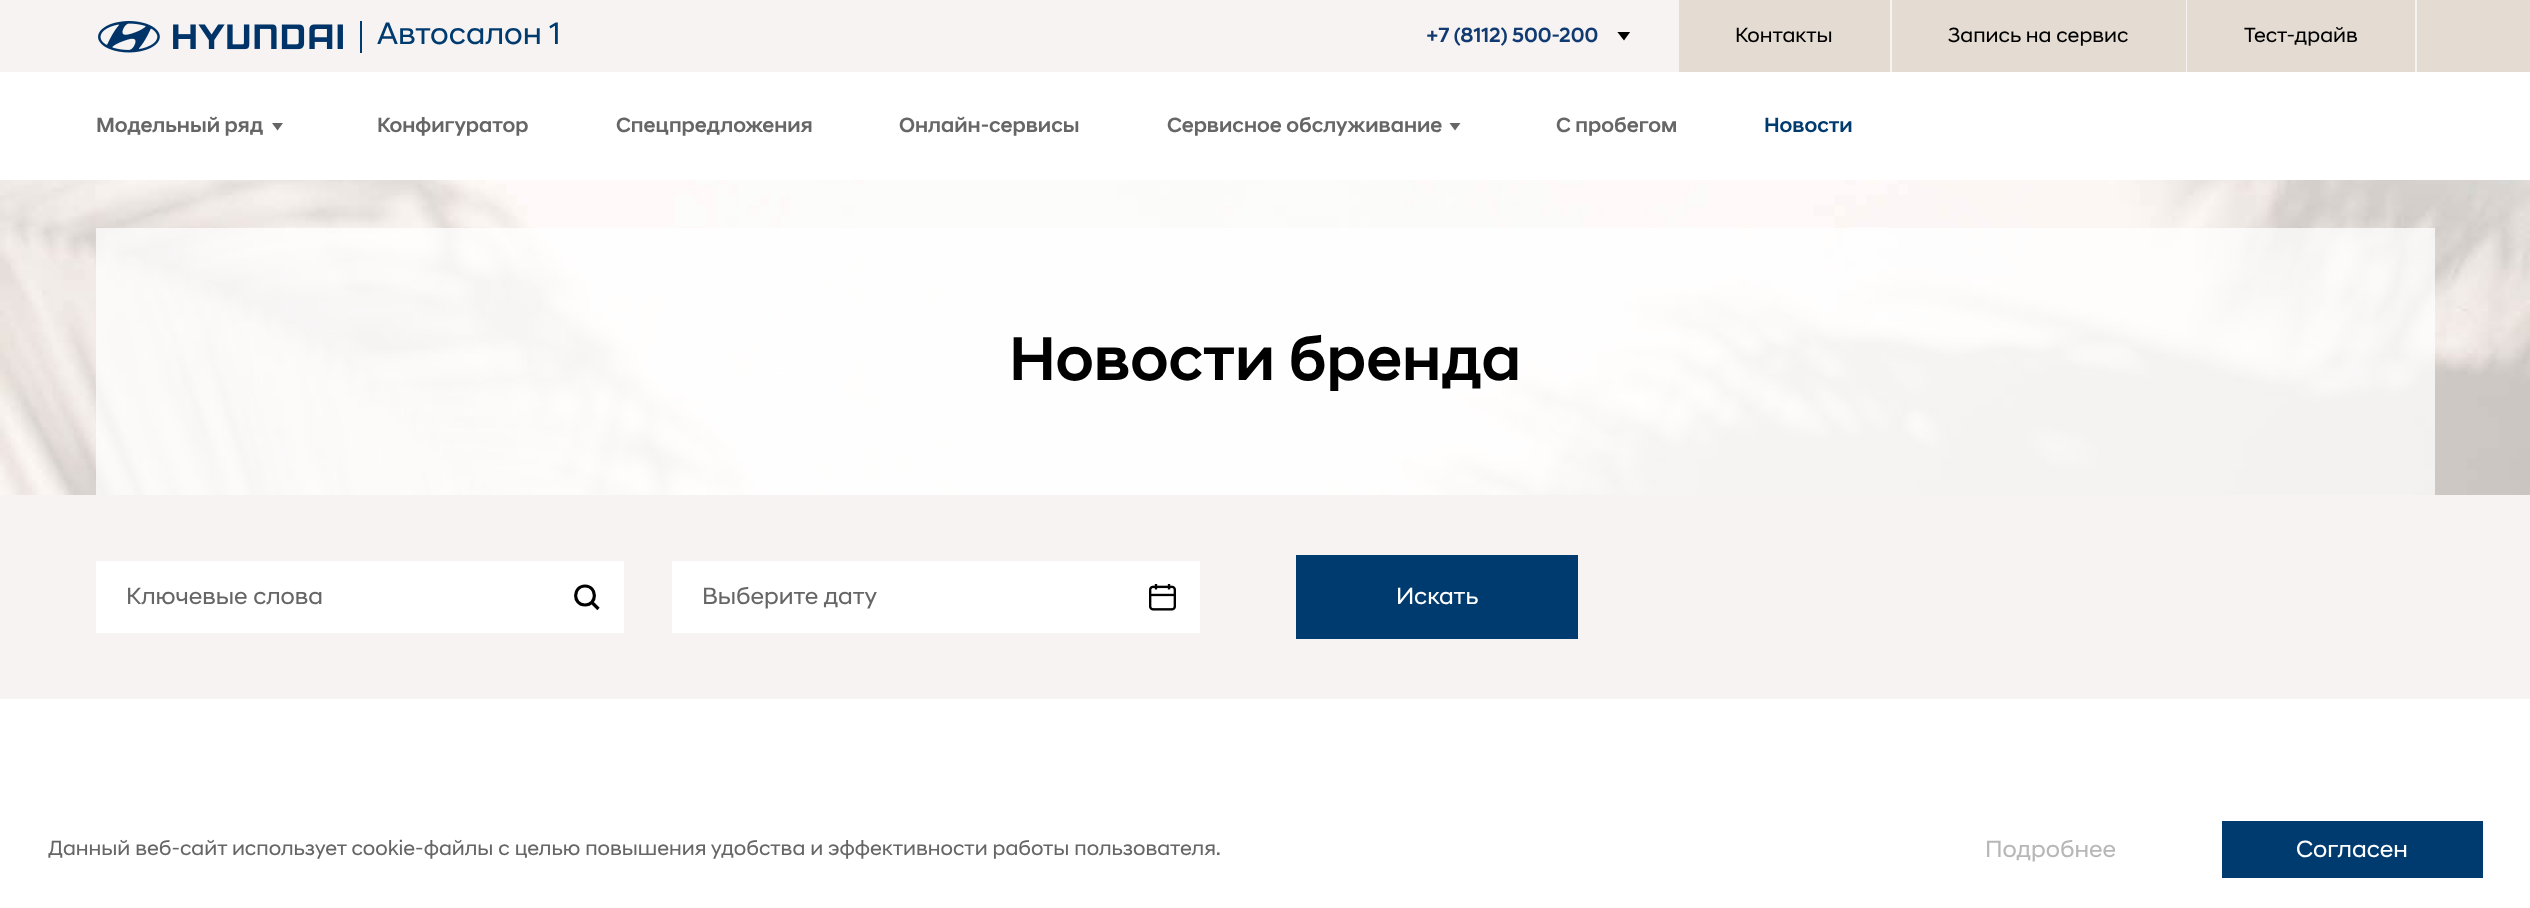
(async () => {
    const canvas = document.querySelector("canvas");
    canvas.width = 2530;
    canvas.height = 908;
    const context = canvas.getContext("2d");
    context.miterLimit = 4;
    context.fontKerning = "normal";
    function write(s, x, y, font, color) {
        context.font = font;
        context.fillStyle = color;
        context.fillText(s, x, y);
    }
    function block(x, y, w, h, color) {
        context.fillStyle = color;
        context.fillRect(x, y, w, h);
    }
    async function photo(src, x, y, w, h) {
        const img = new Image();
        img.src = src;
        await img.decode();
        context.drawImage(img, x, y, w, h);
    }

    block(0, 0, 2530, 908, "rgb(255, 255, 255)");
    block(0, 0, 2417, 72, "rgb(246, 243, 242)");
    await photo("media/1.png", 98, 21, 245, 32);
    block(360, 21, 2, 32, "rgb(0, 59, 112)");
    write("Автосалон 1", 377, 44, "31.5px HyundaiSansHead", "rgb(0, 59, 112)");
    write("+7 (8112) 500-200", 1426, 42, "500 21px HyundaiSansHead", "rgb(16, 58, 113)");
    context.save();
    context.beginPath();
    context.rect(1617, 32, 14, 9);
    context.clip();
    context.fillStyle = "rgb(0, 0, 0)";
    context.beginPath();
    context.moveTo(1624, 40.5);
    context.lineTo(1617, 31.5);
    context.lineTo(1630.5, 31.5);
    context.closePath();
    context.fill();
    context.restore();
    block(1679, 0, 211, 72, "rgb(228, 220, 211)");
    write("Контакты", 1735, 42, "21px HyundaiSansHead", "rgb(0, 0, 0)");
    block(1892, 0, 294, 72, "rgb(228, 220, 211)");
    write("Запись на сервис", 1948, 42, "21px HyundaiSansHead", "rgb(0, 0, 0)");
    block(2187, 0, 228, 72, "rgb(228, 220, 211)");
    write("Тест-драйв", 2244, 42, "21px HyundaiSansHead", "rgb(0, 0, 0)");
    block(2417, 0, 113, 72, "rgb(228, 220, 211)");
    write("Модельный ряд", 96, 132, "500 21px HyundaiSansHead", "rgb(102, 102, 102)");
    context.beginPath();
    context.moveTo(277.5, 130.5);
    context.lineTo(272, 123);
    context.lineTo(283, 123);
    context.closePath();
    context.fill();
    write("Конфигуратор", 377, 132, "500 21px HyundaiSansHead", "rgb(102, 102, 102)");
    write("Спецпредложения", 616, 132, "500 21px HyundaiSansHead", "rgb(102, 102, 102)");
    write("Онлайн-сервисы", 899, 132, "500 21px HyundaiSansHead", "rgb(102, 102, 102)");
    write("Сервисное обслуживание", 1167, 132, "500 21px HyundaiSansHead", "rgb(102, 102, 102)");
    context.beginPath();
    context.moveTo(1455, 130.5);
    context.lineTo(1449.5, 123);
    context.lineTo(1460.5, 123);
    context.closePath();
    context.fill();
    write("С пробегом", 1556, 132, "500 21px HyundaiSansHead", "rgb(102, 102, 102)");
    write("Новости", 1764, 132, "500 21px HyundaiSansHead", "rgb(0, 59, 112)");
    await photo("media/2.png", 0, 180, 2530, 315);
    block(96, 228, 2339, 267, "rgba(255, 255, 255, 0.75)");
    write("Новости бренда", 1009, 380, "500 63px HyundaiSansHead", "rgb(0, 0, 0)");
    block(0, 495, 2530, 204, "rgb(246, 243, 242)");
    block(96, 561, 528, 72, "rgb(255, 255, 255)");
    write("Ключевые слова", 126, 604, "24px HyundaiSansHead", "rgb(102, 102, 102)");
    context.beginPath();
    context.moveTo(585, 605);
    context.bezierCurveTo(597.5, 605, 597.5, 586, 585, 586);
    context.bezierCurveTo(572.5, 586, 572.5, 605, 585, 605);
    context.closePath();
    context.moveTo(592, 602.5);
    context.lineTo(598.5, 609);
    context.strokeStyle = "rgb(0, 0, 0)";
    context.lineWidth = 3.2;
    context.stroke();
    block(672, 561, 528, 72, "rgb(255, 255, 255)");
    write("Выберите дату", 702, 604, "24px HyundaiSansHead", "rgb(102, 102, 102)");
    await photo("media/3.png", 1149, 584, 27, 27);
    block(1296, 555, 282, 84, "rgb(0, 59, 112)");
    write("Искать", 1396, 604, "24px HyundaiSansHead", "rgb(255, 255, 255)");
    write("Данный веб-сайт использует cookie-файлы с целью повышения удобства и эффективности работы пользователя.", 48, 855, "21px HyundaiSansHead", "rgb(102, 102, 102)");
    write("Подробнее", 1985, 857, "24px HyundaiSansHead", "rgb(183, 183, 183)");
    block(2222, 821, 261, 57, "rgb(0, 59, 112)");
    write("Согласен", 2296, 857, "24px HyundaiSansHead", "rgb(255, 255, 255)");
})();
